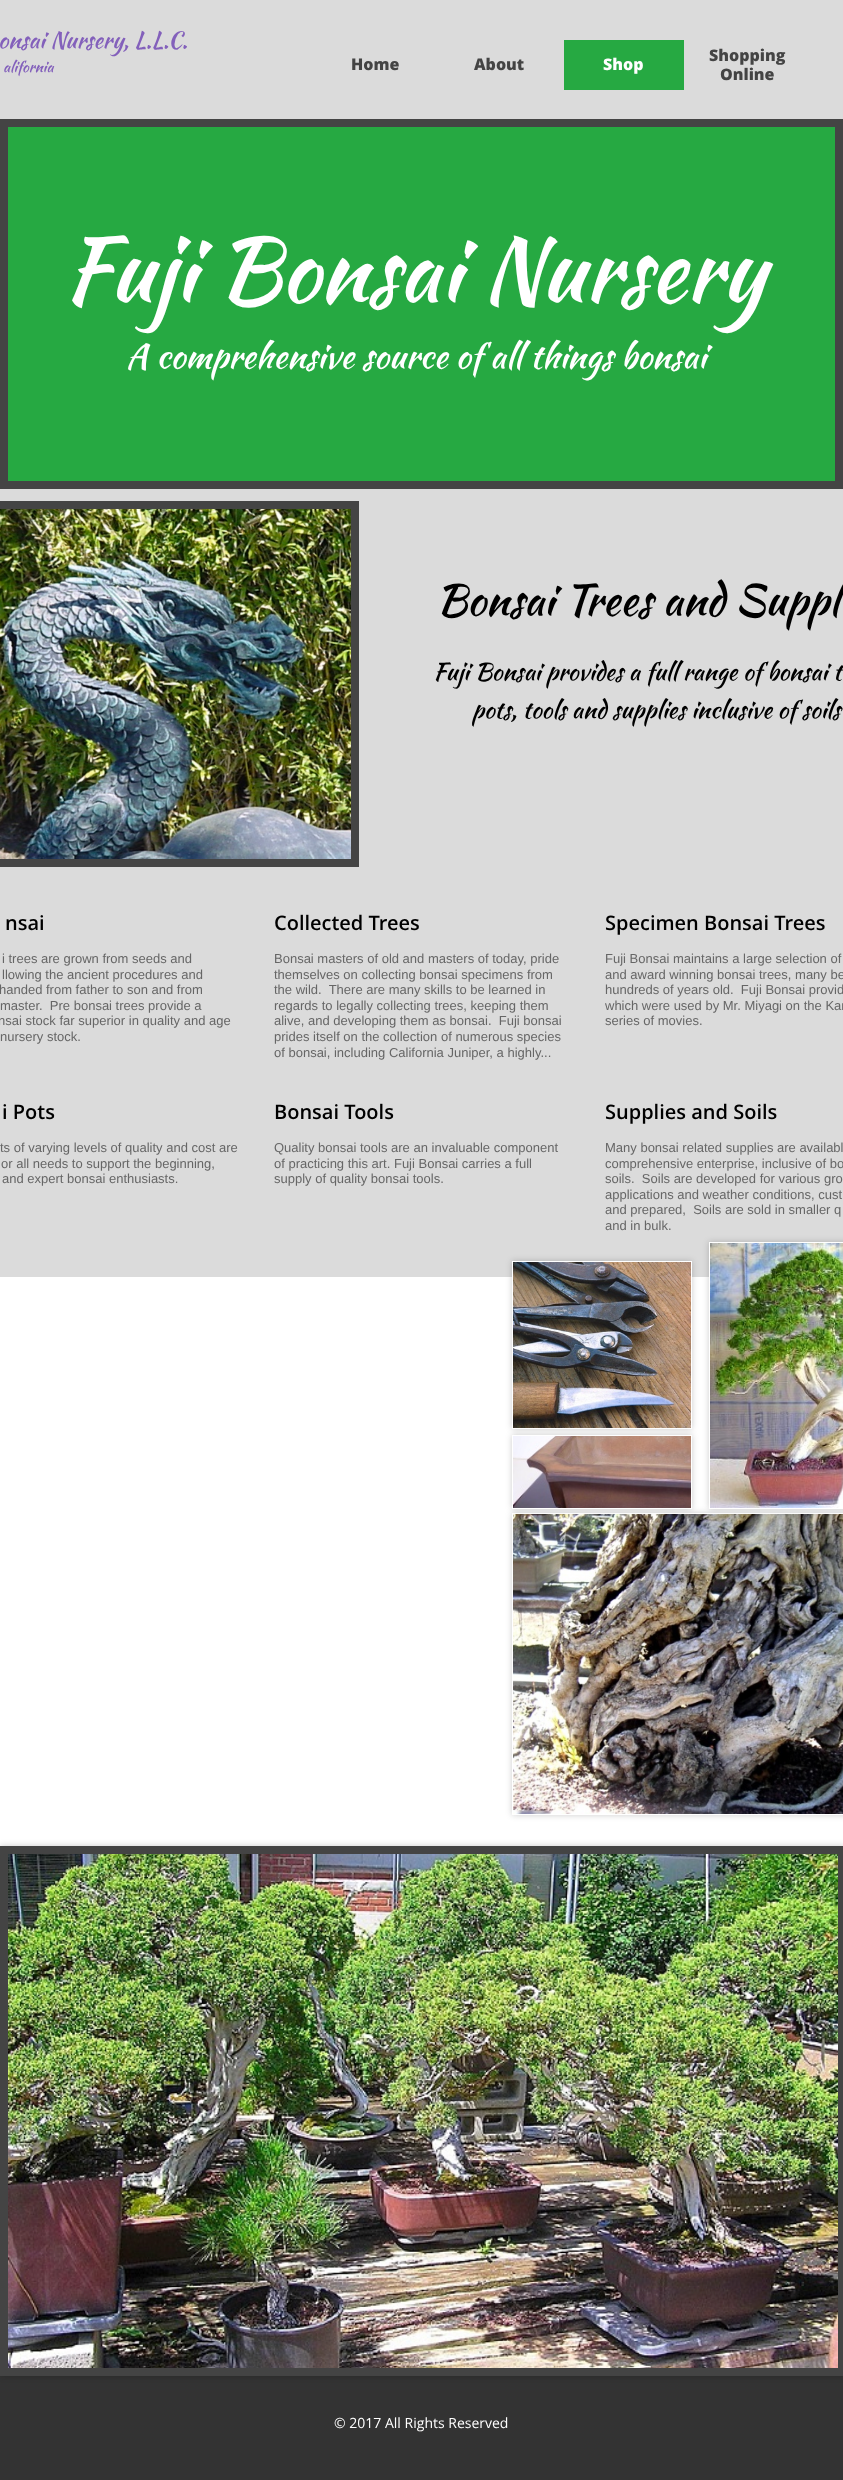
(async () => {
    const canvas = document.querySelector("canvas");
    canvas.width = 843;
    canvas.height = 2480;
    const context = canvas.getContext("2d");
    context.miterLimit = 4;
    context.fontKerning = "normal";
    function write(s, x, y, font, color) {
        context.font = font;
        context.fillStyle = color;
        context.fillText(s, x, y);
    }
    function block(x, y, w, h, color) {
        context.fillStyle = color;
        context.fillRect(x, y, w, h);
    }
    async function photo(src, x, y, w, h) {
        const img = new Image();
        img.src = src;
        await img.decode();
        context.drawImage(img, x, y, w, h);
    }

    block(0, 0, 843, 2480, "rgb(255, 255, 255)");
    block(0, 0, 843, 119, "rgb(219, 219, 219)");
    write("onsai Nursery, L.L.C.", -2, 48, "23px Kaushan Script", "rgb(131, 96, 187)");
    write("alifornia", 3, 72, "15px Kaushan Script", "rgb(131, 96, 187)");
    write("Home", 351, 70, "800 16px Open Sans", "rgb(68, 68, 68)");
    write("About", 474, 70, "800 16px Open Sans", "rgb(68, 68, 68)");
    block(564, 40, 120, 50, "rgb(38, 169, 66)");
    write("Shop", 603, 70, "800 16px Open Sans", "rgb(255, 255, 255)");
    write("Shopping", 709, 61, "800 16px Open Sans", "rgb(68, 68, 68)");
    write("Online", 720, 80, "800 16px Open Sans", "rgb(68, 68, 68)");
    context.fillStyle = "rgb(38, 169, 66)";
    context.beginPath();
    context.rect(4, 123, 835, 362);
    context.fill();
    context.strokeStyle = "rgb(68, 68, 68)";
    context.lineWidth = 8;
    context.stroke();
    write("Fuji Bonsai Nursery", 62, 301, "89px Kaushan Script", "rgb(255, 255, 255)");
    write("A comprehensive source of all things bonsai", 126, 368, "34px Kaushan Script", "rgb(255, 255, 255)");
    block(0, 489, 843, 788, "rgb(219, 219, 219)");
    await photo("media/1.png", 0, 509, 351, 350);
    context.strokeRect(-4, 505, 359, 358);
    write("Bonsai Trees and Suppl", 436, 615, "43px Kaushan Script", "rgb(0, 0, 0)");
    write("Fuji Bonsai provides a full range of bonsai t", 433, 680, "24px Kaushan Script", "rgb(0, 0, 0)");
    write("pots, tools and supplies inclusive of soils", 472, 718, "24px Kaushan Script", "rgb(0, 0, 0)");
    write("nsai", 5, 930, "600 20px Open Sans", "rgb(0, 0, 0)");
    write("i trees are grown from seeds and", 2, 963, "13px Liberation Sans", "rgb(102, 102, 102)");
    write("llowing the ancient procedures and", 2, 979, "13px Liberation Sans", "rgb(102, 102, 102)");
    write("handed from father to son and from", -1, 994, "13px Liberation Sans", "rgb(102, 102, 102)");
    write("master.  Pre bonsai trees provide a", 0, 1010, "13px Liberation Sans", "rgb(102, 102, 102)");
    write("nsai stock far superior in quality and age", -2, 1025, "13px Liberation Sans", "rgb(102, 102, 102)");
    write("nursery stock.", 0, 1041, "13px Liberation Sans", "rgb(102, 102, 102)");
    write("Collected Trees", 274, 930, "600 20px Open Sans", "rgb(0, 0, 0)");
    write("Bonsai masters of old and masters of today, pride", 274, 963, "13px Liberation Sans", "rgb(102, 102, 102)");
    write("themselves on collecting bonsai specimens from", 274, 979, "13px Liberation Sans", "rgb(102, 102, 102)");
    write("the wild.  There are many skills to be learned in", 274, 994, "13px Liberation Sans", "rgb(102, 102, 102)");
    write("regards to legally collecting trees, keeping them", 274, 1010, "13px Liberation Sans", "rgb(102, 102, 102)");
    write("alive, and developing them as bonsai.  Fuji bonsai", 274, 1025, "13px Liberation Sans", "rgb(102, 102, 102)");
    write("prides itself on the collection of numerous species", 274, 1041, "13px Liberation Sans", "rgb(102, 102, 102)");
    write("of bonsai, including California Juniper, a highly...", 274, 1057, "13px Liberation Sans", "rgb(102, 102, 102)");
    write("Specimen Bonsai Trees", 605, 930, "600 20px Open Sans", "rgb(0, 0, 0)");
    write("Fuji Bonsai maintains a large selection of", 605, 963, "13px Liberation Sans", "rgb(102, 102, 102)");
    write("and award winning bonsai trees, many be", 605, 979, "13px Liberation Sans", "rgb(102, 102, 102)");
    write("hundreds of years old.  Fuji Bonsai provid", 605, 994, "13px Liberation Sans", "rgb(102, 102, 102)");
    write("which were used by Mr. Miyagi on the Kar", 605, 1010, "13px Liberation Sans", "rgb(102, 102, 102)");
    write("series of movies.", 605, 1025, "13px Liberation Sans", "rgb(102, 102, 102)");
    write("i Pots", 2, 1119, "600 20px Open Sans", "rgb(0, 0, 0)");
    write("ts of varying levels of quality and cost are", 0, 1152, "13px Liberation Sans", "rgb(102, 102, 102)");
    write("or all needs to support the beginning,", 1, 1168, "13px Liberation Sans", "rgb(102, 102, 102)");
    write("and expert bonsai enthusiasts.", 2, 1183, "13px Liberation Sans", "rgb(102, 102, 102)");
    write("Bonsai Tools", 274, 1119, "600 20px Open Sans", "rgb(0, 0, 0)");
    write("Quality bonsai tools are an invaluable component", 274, 1152, "13px Liberation Sans", "rgb(102, 102, 102)");
    write("of practicing this art. Fuji Bonsai carries a full", 274, 1168, "13px Liberation Sans", "rgb(102, 102, 102)");
    write("supply of quality bonsai tools.", 274, 1183, "13px Liberation Sans", "rgb(102, 102, 102)");
    write("Supplies and Soils", 605, 1119, "600 20px Open Sans", "rgb(0, 0, 0)");
    write("Many bonsai related supplies are availabl", 605, 1152, "13px Liberation Sans", "rgb(102, 102, 102)");
    write("comprehensive enterprise, inclusive of bo", 605, 1168, "13px Liberation Sans", "rgb(102, 102, 102)");
    write("soils.  Soils are developed for various gro", 605, 1183, "13px Liberation Sans", "rgb(102, 102, 102)");
    write("applications and weather conditions, cust", 605, 1199, "13px Liberation Sans", "rgb(102, 102, 102)");
    write("and prepared,  Soils are sold in smaller q", 605, 1214, "13px Liberation Sans", "rgb(102, 102, 102)");
    write("and in bulk.", 605, 1230, "13px Liberation Sans", "rgb(102, 102, 102)");
    await photo("media/2.png", 513, 1262, 178, 166);
    context.save();
    context.beginPath();
    context.moveTo(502, 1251);
    context.lineTo(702, 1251);
    context.lineTo(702, 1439);
    context.lineTo(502, 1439);
    context.closePath();
    context.moveTo(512, 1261);
    context.lineTo(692, 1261);
    context.lineTo(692, 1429);
    context.lineTo(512, 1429);
    context.closePath();
    context.clip("evenodd");
    context.fillStyle = "rgba(0, 0, 0, 0.2)";
    context.filter = "blur(3px)";
    context.beginPath();
    context.rect(512, 1261, 180, 168);
    context.fill();
    context.filter = "none";
    context.restore();
    context.strokeStyle = "rgb(255, 255, 255)";
    context.lineWidth = 1;
    context.strokeRect(512.5, 1261.5, 179, 167);
    await photo("media/5.png", 513, 1514, 330, 300);
    context.save();
    context.beginPath();
    context.moveTo(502, 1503);
    context.lineTo(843, 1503);
    context.lineTo(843, 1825);
    context.lineTo(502, 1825);
    context.closePath();
    context.moveTo(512, 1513);
    context.lineTo(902, 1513);
    context.lineTo(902, 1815);
    context.lineTo(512, 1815);
    context.closePath();
    context.clip("evenodd");
    context.fillStyle = "rgba(0, 0, 0, 0.2)";
    context.filter = "blur(3px)";
    context.beginPath();
    context.rect(512, 1513, 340, 302);
    context.fill();
    context.filter = "none";
    context.restore();
    await photo("media/3.png", 710, 1243, 133, 265);
    context.save();
    context.beginPath();
    context.moveTo(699, 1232);
    context.lineTo(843, 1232);
    context.lineTo(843, 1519);
    context.lineTo(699, 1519);
    context.closePath();
    context.moveTo(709, 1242);
    context.lineTo(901, 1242);
    context.lineTo(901, 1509);
    context.lineTo(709, 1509);
    context.closePath();
    context.clip("evenodd");
    context.fillStyle = "rgba(0, 0, 0, 0.2)";
    context.filter = "blur(3px)";
    context.beginPath();
    context.rect(709, 1242, 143, 267);
    context.fill();
    context.filter = "none";
    context.restore();
    context.strokeRect(709.5, 1242.5, 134, 266);
    await photo("media/4.png", 513, 1436, 178, 72);
    context.save();
    context.beginPath();
    context.moveTo(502, 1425);
    context.lineTo(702, 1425);
    context.lineTo(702, 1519);
    context.lineTo(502, 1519);
    context.closePath();
    context.moveTo(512, 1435);
    context.lineTo(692, 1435);
    context.lineTo(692, 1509);
    context.lineTo(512, 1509);
    context.closePath();
    context.clip("evenodd");
    context.fillStyle = "rgba(0, 0, 0, 0.2)";
    context.filter = "blur(3px)";
    context.beginPath();
    context.rect(512, 1435, 180, 74);
    context.fill();
    context.filter = "none";
    context.restore();
    context.strokeRect(512.5, 1435.5, 179, 73);
    await photo("media/6.png", 8, 1854, 830, 514);
    block(0, 2376, 843, 104, "rgb(51, 51, 51)");
    context.save();
    context.beginPath();
    context.moveTo(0, 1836);
    context.lineTo(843, 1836);
    context.lineTo(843, 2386);
    context.lineTo(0, 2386);
    context.closePath();
    context.moveTo(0, 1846);
    context.lineTo(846, 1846);
    context.lineTo(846, 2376);
    context.lineTo(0, 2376);
    context.closePath();
    context.clip("evenodd");
    context.fillStyle = "rgba(0, 0, 0, 0.2)";
    context.filter = "blur(3px)";
    context.beginPath();
    context.rect(0, 1846, 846, 530);
    context.fill();
    context.filter = "none";
    context.restore();
    context.strokeStyle = "rgb(68, 68, 68)";
    context.lineWidth = 8;
    context.strokeRect(4, 1850, 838, 522);
    write("© 2017 All Rights Reserved", 334, 2428, "14px Open Sans", "rgb(255, 255, 255)");
})();
